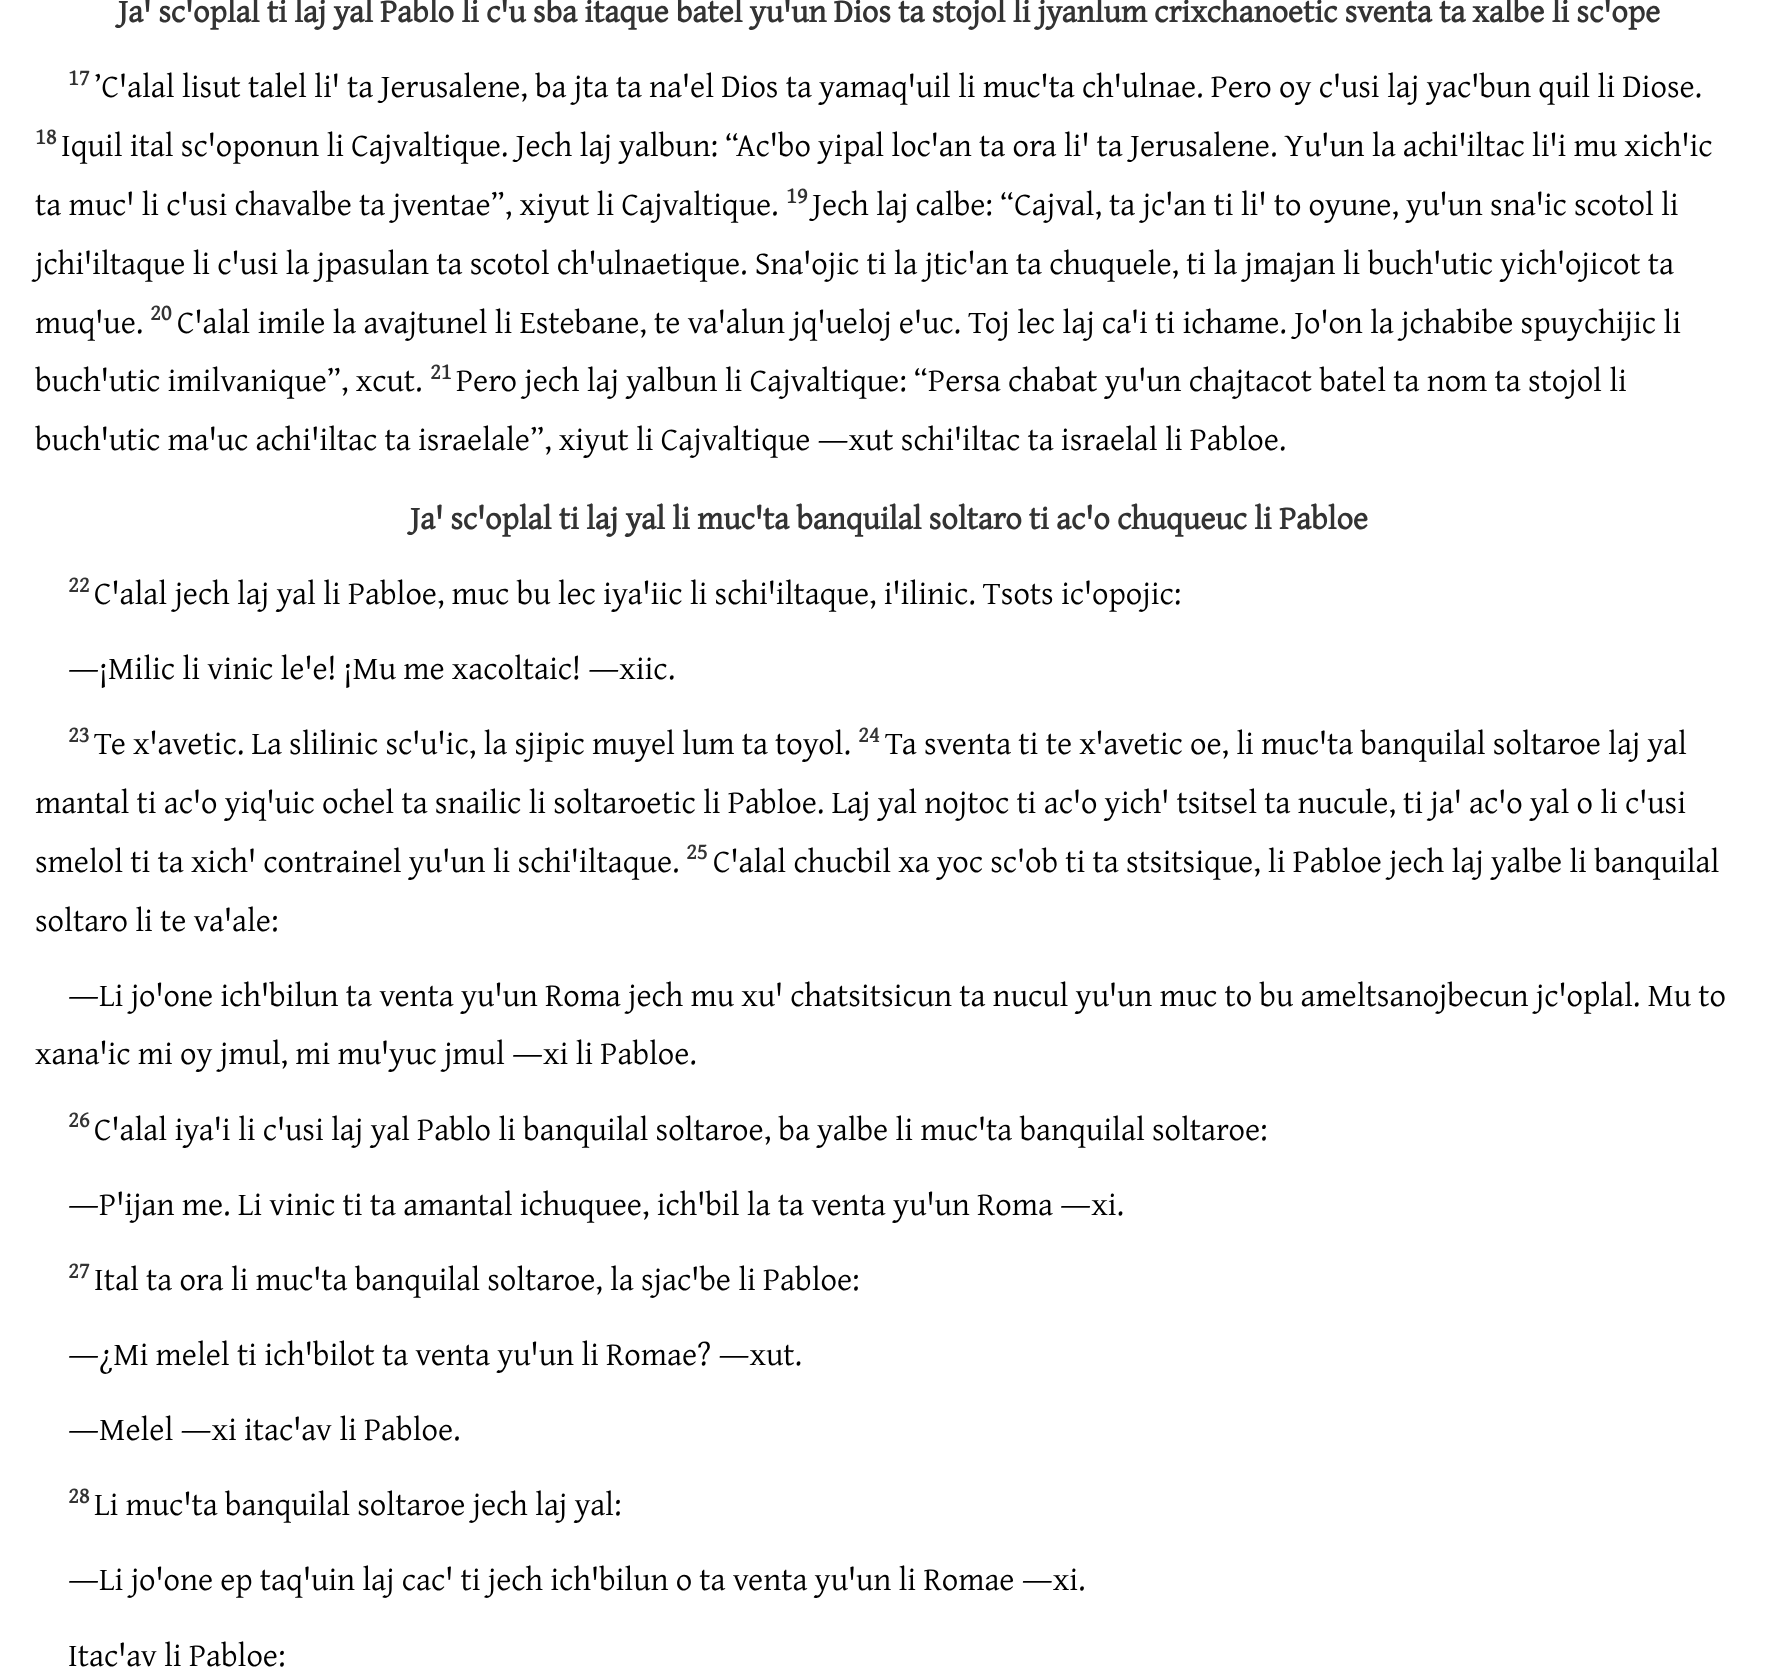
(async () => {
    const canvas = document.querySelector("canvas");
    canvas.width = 1777;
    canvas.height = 1673;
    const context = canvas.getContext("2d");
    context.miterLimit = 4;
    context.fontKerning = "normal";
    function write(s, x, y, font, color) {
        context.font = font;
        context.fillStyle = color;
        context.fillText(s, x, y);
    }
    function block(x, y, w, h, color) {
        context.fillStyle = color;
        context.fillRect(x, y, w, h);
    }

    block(0, 0, 1777, 1673, "rgb(255, 255, 255)");
    write("Jaꞌ scꞌoplal ti laj yal Pablo li cꞌu sba itaque batel yuꞌun Dios ta stojol li jyanlum crixchanoetic sventa ta xalbe li scꞌope", 118, 22, "bold 32.67px Gentium Plus", "rgb(51, 51, 51)");
    write("17", 68, 85, "bold 23px Gentium Plus", "rgb(51, 51, 51)");
    write("’Cꞌalal lisut talel liꞌ ta Jerusalene, ba jta ta naꞌel Dios ta yamaqꞌuil li mucꞌta chꞌulnae. Pero oy cꞌusi laj yacꞌbun quil li Diose.", 94, 97, "32.67px Gentium Plus", "rgb(0, 0, 0)");
    write("18", 35, 144, "bold 23px Gentium Plus", "rgb(51, 51, 51)");
    write("Iquil ital scꞌoponun li Cajvaltique. Jech laj yalbun: “Acꞌbo yipal locꞌan ta ora liꞌ ta Jerusalene. Yuꞌun la achiꞌiltac liꞌi mu xichꞌic", 61, 156, "32.67px Gentium Plus", "rgb(0, 0, 0)");
    write("ta mucꞌ li cꞌusi chavalbe ta jventae”, xiyut li Cajvaltique.", 35, 215, "32.67px Gentium Plus", "rgb(0, 0, 0)");
    write("19", 786, 203, "bold 23px Gentium Plus", "rgb(51, 51, 51)");
    write("Jech laj calbe: “Cajval, ta jcꞌan ti liꞌ to oyune, yuꞌun snaꞌic scotol li", 812, 215, "32.67px Gentium Plus", "rgb(0, 0, 0)");
    write("jchiꞌiltaque li cꞌusi la jpasulan ta scotol chꞌulnaetique. Snaꞌojic ti la jticꞌan ta chuquele, ti la jmajan li buchꞌutic yichꞌojicot ta", 35, 274, "32.67px Gentium Plus", "rgb(0, 0, 0)");
    write("muqꞌue.", 35, 333, "32.67px Gentium Plus", "rgb(0, 0, 0)");
    write("20", 150, 320, "bold 23px Gentium Plus", "rgb(51, 51, 51)");
    write("Cꞌalal imile la avajtunel li Estebane, te vaꞌalun jqꞌueloj eꞌuc. Toj lec laj caꞌi ti ichame. Joꞌon la jchabibe spuychijic li", 177, 333, "32.67px Gentium Plus", "rgb(0, 0, 0)");
    write("buchꞌutic imilvanique”, xcut.", 35, 391, "32.67px Gentium Plus", "rgb(0, 0, 0)");
    write("21", 430, 379, "bold 23px Gentium Plus", "rgb(51, 51, 51)");
    write("Pero jech laj yalbun li Cajvaltique: “Persa chabat yuꞌun chajtacot batel ta nom ta stojol li", 456, 391, "32.67px Gentium Plus", "rgb(0, 0, 0)");
    write("buchꞌutic maꞌuc achiꞌiltac ta israelale”, xiyut li Cajvaltique ―xut schiꞌiltac ta israelal li Pabloe.", 35, 450, "32.67px Gentium Plus", "rgb(0, 0, 0)");
    write("Jaꞌ scꞌoplal ti laj yal li mucꞌta banquilal soltaro ti acꞌo chuqueuc li Pabloe", 410, 529, "bold 32.67px Gentium Plus", "rgb(51, 51, 51)");
    write("22", 68, 592, "bold 23px Gentium Plus", "rgb(51, 51, 51)");
    write("Cꞌalal jech laj yal li Pabloe, muc bu lec iyaꞌiic li schiꞌiltaque, iꞌilinic. Tsots icꞌopojic:", 94, 604, "32.67px Gentium Plus", "rgb(0, 0, 0)");
    write("―¡Milic li vinic leꞌe! ¡Mu me xacoltaic! ―xiic.", 68, 679, "32.67px Gentium Plus", "rgb(0, 0, 0)");
    write("23", 68, 742, "bold 23px Gentium Plus", "rgb(51, 51, 51)");
    write("Te xꞌavetic. La slilinic scꞌuꞌic, la sjipic muyel lum ta toyol.", 94, 754, "32.67px Gentium Plus", "rgb(0, 0, 0)");
    write("24", 858, 742, "bold 23px Gentium Plus", "rgb(51, 51, 51)");
    write("Ta sventa ti te xꞌavetic oe, li mucꞌta banquilal soltaroe laj yal", 885, 754, "32.67px Gentium Plus", "rgb(0, 0, 0)");
    write("mantal ti acꞌo yiqꞌuic ochel ta snailic li soltaroetic li Pabloe. Laj yal nojtoc ti acꞌo yichꞌ tsitsel ta nucule, ti jaꞌ acꞌo yal o li cꞌusi", 35, 813, "32.67px Gentium Plus", "rgb(0, 0, 0)");
    write("smelol ti ta xichꞌ contrainel yuꞌun li schiꞌiltaque.", 35, 872, "32.67px Gentium Plus", "rgb(0, 0, 0)");
    write("25", 686, 859, "bold 23px Gentium Plus", "rgb(51, 51, 51)");
    write("Cꞌalal chucbil xa yoc scꞌob ti ta stsitsique, li Pabloe jech laj yalbe li banquilal", 713, 872, "32.67px Gentium Plus", "rgb(0, 0, 0)");
    write("soltaro li te vaꞌale:", 35, 931, "32.67px Gentium Plus", "rgb(0, 0, 0)");
    write("―Li joꞌone ichꞌbilun ta venta yuꞌun Roma jech mu xuꞌ chatsitsicun ta nucul yuꞌun muc to bu ameltsanojbecun jcꞌoplal. Mu to", 68, 1006, "32.67px Gentium Plus", "rgb(0, 0, 0)");
    write("xanaꞌic mi oy jmul, mi muꞌyuc jmul ―xi li Pabloe.", 35, 1064, "32.67px Gentium Plus", "rgb(0, 0, 0)");
    write("26", 68, 1127, "bold 23px Gentium Plus", "rgb(51, 51, 51)");
    write("Cꞌalal iyaꞌi li cꞌusi laj yal Pablo li banquilal soltaroe, ba yalbe li mucꞌta banquilal soltaroe:", 94, 1140, "32.67px Gentium Plus", "rgb(0, 0, 0)");
    write("―Pꞌijan me. Li vinic ti ta amantal ichuquee, ichꞌbil la ta venta yuꞌun Roma ―xi.", 68, 1215, "32.67px Gentium Plus", "rgb(0, 0, 0)");
    write("27", 68, 1278, "bold 23px Gentium Plus", "rgb(51, 51, 51)");
    write("Ital ta ora li mucꞌta banquilal soltaroe, la sjacꞌbe li Pabloe:", 94, 1290, "32.67px Gentium Plus", "rgb(0, 0, 0)");
    write("―¿Mi melel ti ichꞌbilot ta venta yuꞌun li Romae? ―xut.", 68, 1365, "32.67px Gentium Plus", "rgb(0, 0, 0)");
    write("―Melel ―xi itacꞌav li Pabloe.", 68, 1440, "32.67px Gentium Plus", "rgb(0, 0, 0)");
    write("28", 68, 1503, "bold 23px Gentium Plus", "rgb(51, 51, 51)");
    write("Li mucꞌta banquilal soltaroe jech laj yal:", 94, 1515, "32.67px Gentium Plus", "rgb(0, 0, 0)");
    write("―Li joꞌone ep taqꞌuin laj cacꞌ ti jech ichꞌbilun o ta venta yuꞌun li Romae ―xi.", 68, 1590, "32.67px Gentium Plus", "rgb(0, 0, 0)");
    write("Itacꞌav li Pabloe:", 68, 1666, "32.67px Gentium Plus", "rgb(0, 0, 0)");
})();
